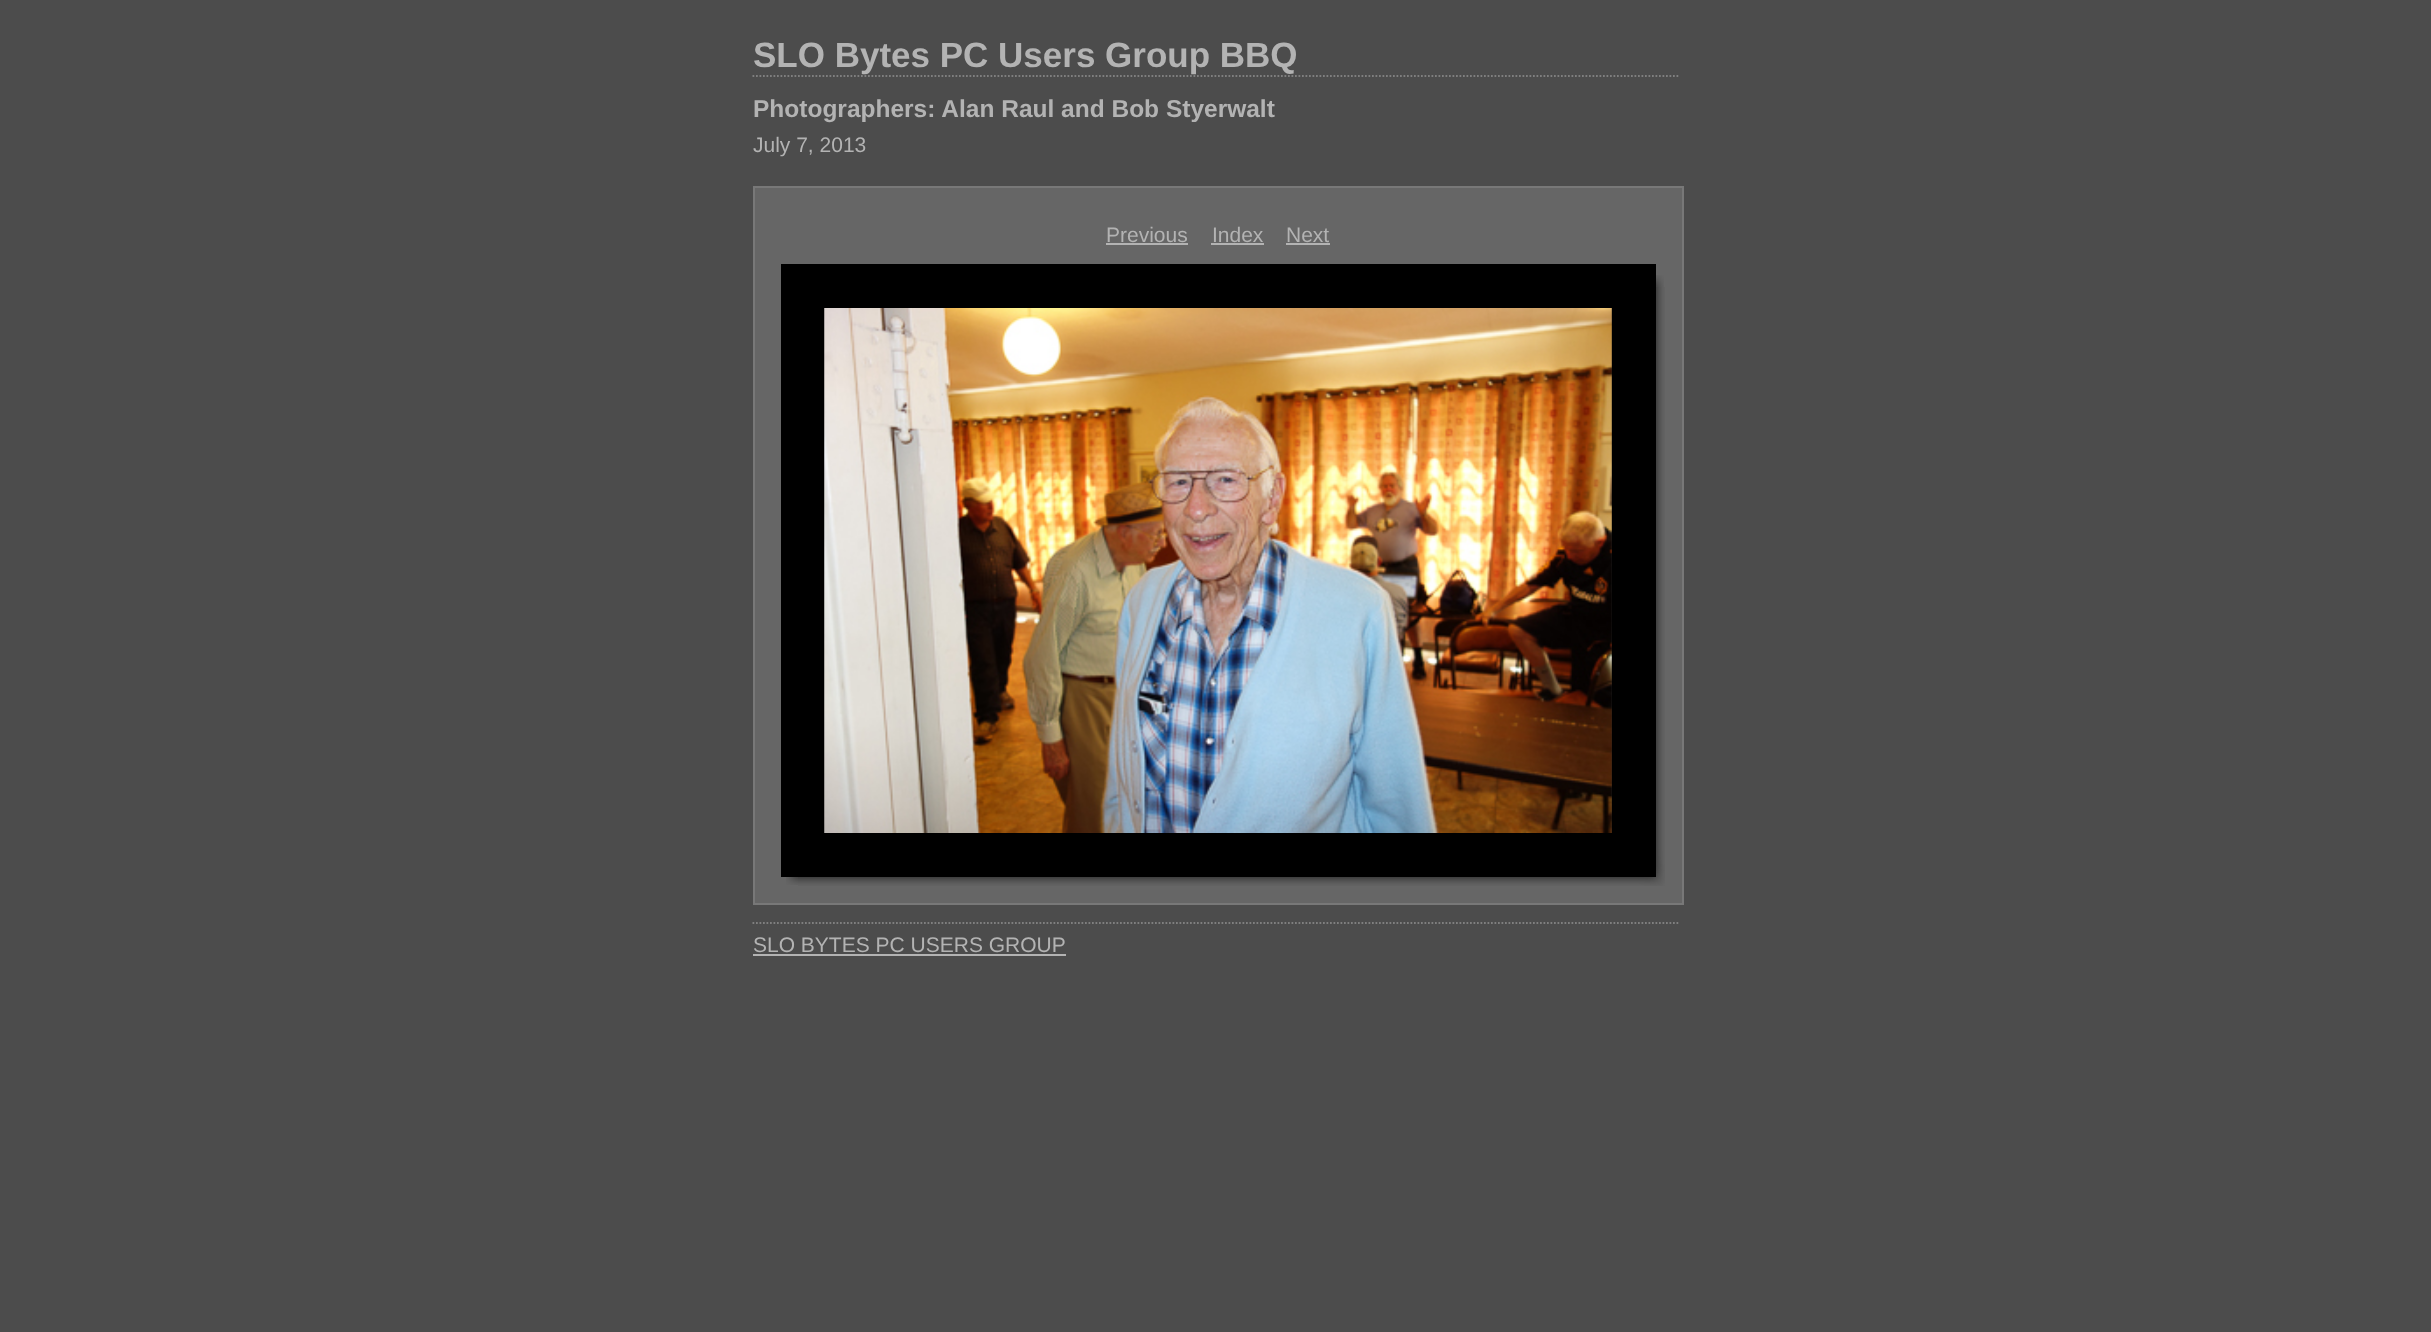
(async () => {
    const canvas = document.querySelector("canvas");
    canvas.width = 2431;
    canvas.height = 1332;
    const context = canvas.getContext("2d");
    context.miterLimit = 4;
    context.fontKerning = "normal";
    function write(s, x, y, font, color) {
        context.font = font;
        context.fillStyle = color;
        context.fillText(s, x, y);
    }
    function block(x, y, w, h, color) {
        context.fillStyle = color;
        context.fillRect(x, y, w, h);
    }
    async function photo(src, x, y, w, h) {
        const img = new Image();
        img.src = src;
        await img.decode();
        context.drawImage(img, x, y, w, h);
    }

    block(0, 0, 2431, 1332, "rgb(76, 76, 76)");
    context.beginPath();
    context.moveTo(752.5, 76);
    context.lineTo(1680, 76);
    context.strokeStyle = "rgb(127, 127, 127)";
    context.lineWidth = 1.8;
    context.setLineDash([1.75, 1.75]);
    context.stroke();
    write("SLO Bytes PC Users Group BBQ", 753, 67, "bold 35px Liberation Sans", "rgb(179, 179, 179)");
    write("Photographers: Alan Raul and Bob Styerwalt", 753, 117, "bold 24.5px Liberation Sans", "rgb(179, 179, 179)");
    write("July 7, 2013", 753, 152, "21px Liberation Sans", "rgb(179, 179, 179)");
    context.beginPath();
    context.moveTo(752.5, 923);
    context.lineTo(1680, 923);
    context.stroke();
    context.fillStyle = "rgb(102, 102, 102)";
    context.beginPath();
    context.rect(754, 187, 929, 717);
    context.fill();
    context.strokeStyle = "rgb(120, 120, 120)";
    context.lineWidth = 2;
    context.setLineDash([]);
    context.stroke();
    write("Previous", 1106, 242, "21px Liberation Sans", "rgb(179, 179, 179)");
    block(1106, 243, 82, 2, "rgb(179, 179, 179)");
    write("Index", 1212, 242, "21px Liberation Sans", "rgb(179, 179, 179)");
    block(1211, 243, 53, 2, "rgb(179, 179, 179)");
    write("Next", 1286, 242, "21px Liberation Sans", "rgb(179, 179, 179)");
    block(1286, 243, 44, 2, "rgb(179, 179, 179)");
    await photo("media/1.png", 798, 287, 867, 599);
    context.strokeStyle = "rgb(0, 0, 0)";
    context.lineWidth = 44;
    context.strokeRect(803, 286, 831, 569);
    await photo("media/2.png", 824, 308, 788, 525);
    await photo("media/3.png", 1656, 275, 8, 12);
    await photo("media/4.png", 786, 877, 12, 8);
    write("SLO BYTES PC USERS GROUP", 753, 952, "21px Liberation Sans", "rgb(179, 179, 179)");
    block(753, 954, 313, 2, "rgb(179, 179, 179)");
})();
